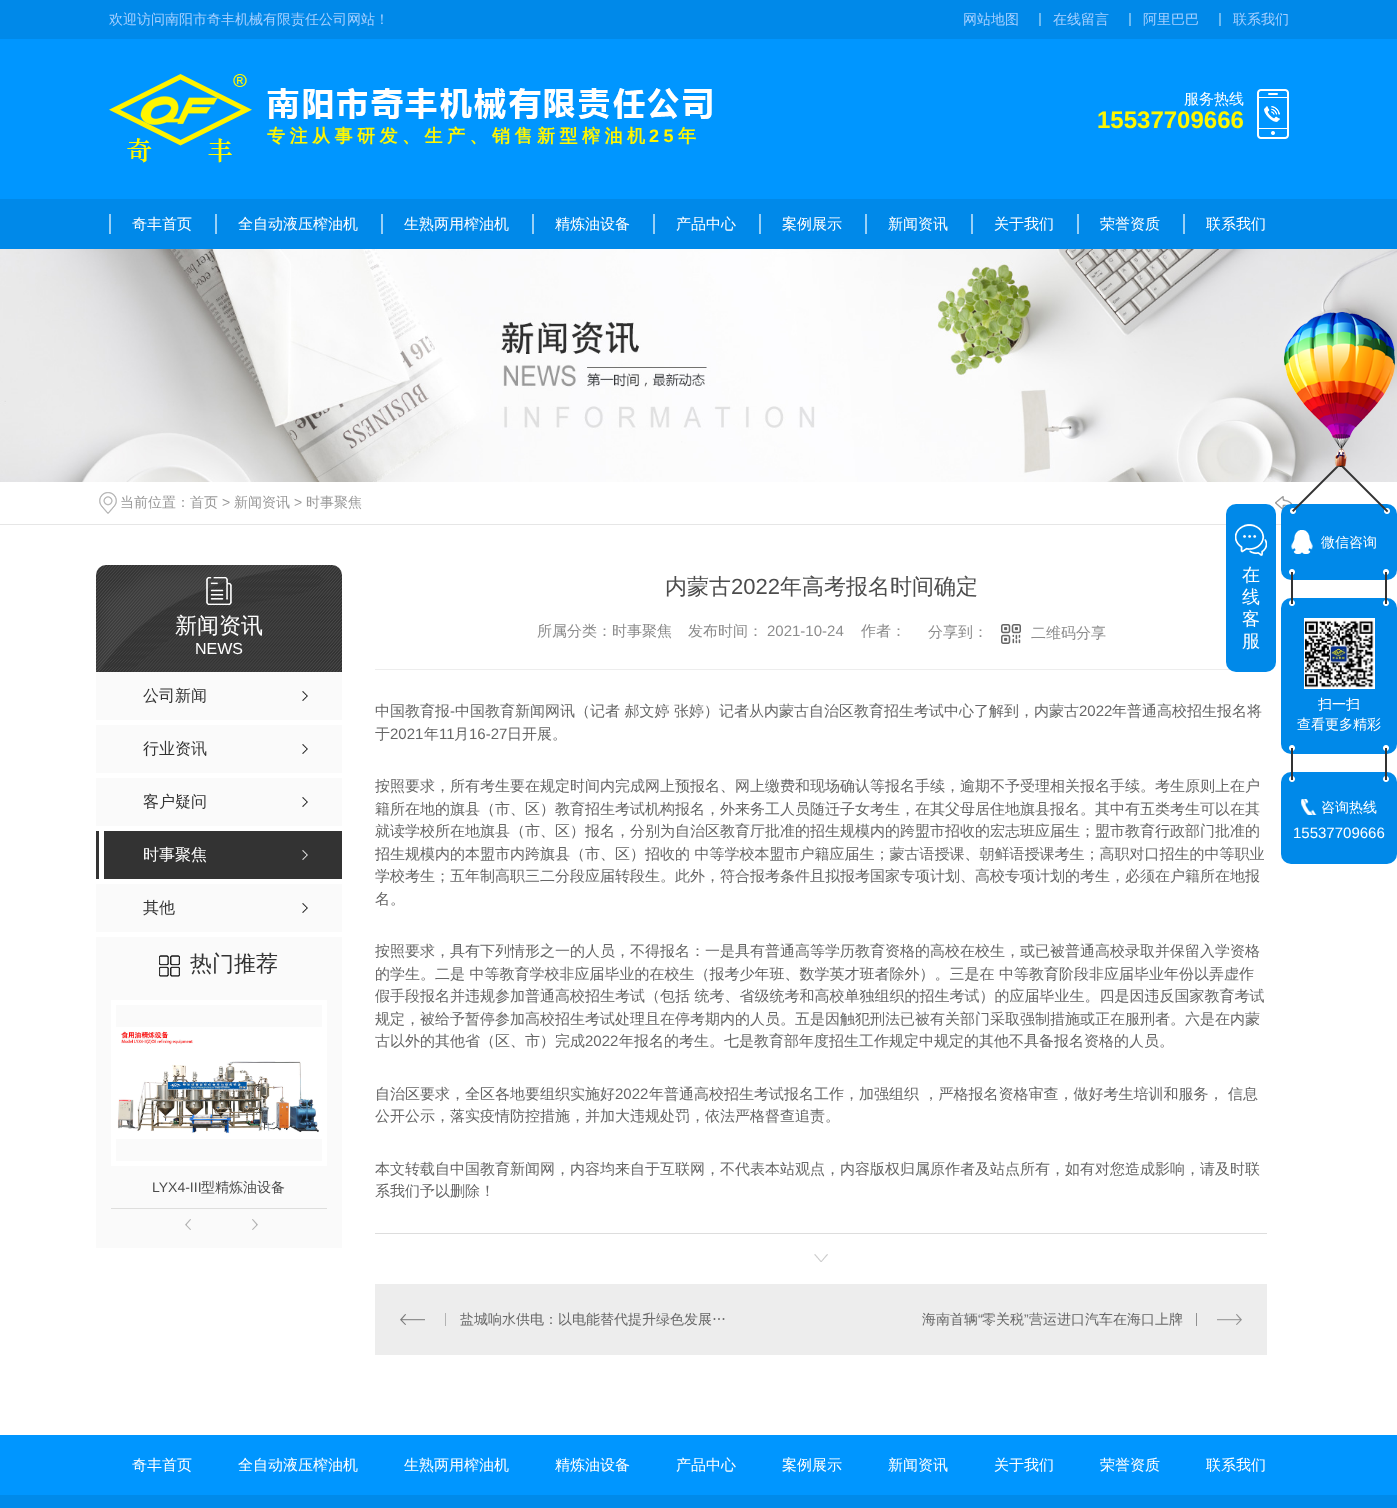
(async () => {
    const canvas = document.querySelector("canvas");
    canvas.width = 1397;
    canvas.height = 1508;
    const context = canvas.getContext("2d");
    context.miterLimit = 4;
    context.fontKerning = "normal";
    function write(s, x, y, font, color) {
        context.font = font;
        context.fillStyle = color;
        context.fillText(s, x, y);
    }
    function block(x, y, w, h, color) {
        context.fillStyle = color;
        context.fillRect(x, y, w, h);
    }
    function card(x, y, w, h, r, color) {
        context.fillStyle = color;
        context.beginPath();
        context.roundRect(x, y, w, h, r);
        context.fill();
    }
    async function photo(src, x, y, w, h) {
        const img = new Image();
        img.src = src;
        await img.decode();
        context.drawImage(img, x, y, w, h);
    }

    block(0, 0, 1397, 1508, "rgb(255, 255, 255)");
    block(0, 0, 1397, 39, "rgb(0, 137, 233)");
    write("欢迎访问南阳市奇丰机械有限责任公司网站！", 109, 24, "500 14px WenQuanYi Zen Hei", "rgb(166, 208, 255)");
    write("网站地图", 963, 24, "500 14px WenQuanYi Zen Hei", "rgb(166, 208, 255)");
    block(1039, 13, 2, 13, "rgb(107, 187, 242)");
    write("在线留言", 1053, 24, "500 14px WenQuanYi Zen Hei", "rgb(166, 208, 255)");
    block(1129, 13, 2, 13, "rgb(107, 187, 242)");
    write("阿里巴巴", 1143, 24, "500 14px WenQuanYi Zen Hei", "rgb(166, 208, 255)");
    block(1219, 13, 2, 13, "rgb(107, 187, 242)");
    write("联系我们", 1233, 24, "500 14px WenQuanYi Zen Hei", "rgb(166, 208, 255)");
    block(0, 39, 1397, 160, "rgb(0, 150, 255)");
    await photo("media/1.png", 109, 74, 143, 89);
    await photo("media/2.png", 1257, 89, 32, 50);
    write("服务热线", 1184, 104, "500 15px WenQuanYi Zen Hei", "rgb(255, 255, 255)");
    write("15537709666", 1097, 128, "bold 24px Liberation Sans", "rgb(255, 246, 0)");
    await photo("media/3.png", 267, 88, 445, 31);
    context.letterSpacing = "4.5px";
    write("专注从事研发、生产、销售新型榨油机", 267, 142, "bold 18px WenQuanYi Zen Hei", "rgb(255, 246, 0)");
    write("25", 649, 142, "bold 18px Liberation Sans", "rgb(255, 246, 0)");
    write("年", 678, 142, "bold 18px WenQuanYi Zen Hei", "rgb(255, 246, 0)");
    block(0, 199, 1397, 50, "rgb(0, 137, 233)");
    block(109, 214, 2, 20, "rgb(153, 208, 246)");
    context.letterSpacing = "0px";
    write("奇丰首页", 132, 229, "500 15px WenQuanYi Zen Hei", "rgb(255, 255, 255)");
    block(215, 214, 2, 20, "rgb(153, 208, 246)");
    write("全自动液压榨油机", 238, 229, "500 15px WenQuanYi Zen Hei", "rgb(255, 255, 255)");
    block(381, 214, 2, 20, "rgb(153, 208, 246)");
    write("生熟两用榨油机", 404, 229, "500 15px WenQuanYi Zen Hei", "rgb(255, 255, 255)");
    block(532, 214, 2, 20, "rgb(153, 208, 246)");
    write("精炼油设备", 555, 229, "500 15px WenQuanYi Zen Hei", "rgb(255, 255, 255)");
    block(653, 214, 2, 20, "rgb(153, 208, 246)");
    write("产品中心", 676, 229, "500 15px WenQuanYi Zen Hei", "rgb(255, 255, 255)");
    block(759, 214, 2, 20, "rgb(153, 208, 246)");
    write("案例展示", 782, 229, "500 15px WenQuanYi Zen Hei", "rgb(255, 255, 255)");
    block(865, 214, 2, 20, "rgb(153, 208, 246)");
    write("新闻资讯", 888, 229, "500 15px WenQuanYi Zen Hei", "rgb(255, 255, 255)");
    block(971, 214, 2, 20, "rgb(153, 208, 246)");
    write("关于我们", 994, 229, "500 15px WenQuanYi Zen Hei", "rgb(255, 255, 255)");
    block(1077, 214, 2, 20, "rgb(153, 208, 246)");
    write("荣誉资质", 1100, 229, "500 15px WenQuanYi Zen Hei", "rgb(255, 255, 255)");
    block(1183, 214, 2, 20, "rgb(153, 208, 246)");
    write("联系我们", 1206, 229, "500 15px WenQuanYi Zen Hei", "rgb(255, 255, 255)");
    await photo("media/4.png", 0, 249, 1397, 233);
    block(0, 524, 1281, 1, "rgb(230, 230, 230)");
    await photo("media/5.png", 99, 492, 18, 22);
    write("当前位置：首页", 120, 507, "500 14px WenQuanYi Zen Hei", "rgb(153, 153, 153)");
    write(">", 222, 507, "14px Liberation Sans", "rgb(153, 153, 153)");
    write("新闻资讯", 234, 507, "500 14px WenQuanYi Zen Hei", "rgb(153, 153, 153)");
    write(">", 294, 507, "14px Liberation Sans", "rgb(153, 153, 153)");
    write("时事聚焦", 306, 507, "500 14px WenQuanYi Zen Hei", "rgb(153, 153, 153)");
    await photo("media/6.png", 1275, 496, 18, 14);
    context.fillStyle = "rgb(51, 51, 51)";
    context.beginPath();
    context.roundRect(96, 565, 246, 112, [10, 10, 0, 0]);
    context.fill();
    await photo("media/7.png", 96, 565, 246, 107);
    await photo("media/8.png", 206, 577, 26, 28);
    write("新闻资讯", 175, 633, "500 22px WenQuanYi Zen Hei", "rgb(255, 255, 255)");
    write("NEWS", 195, 654, "16px Liberation Sans", "rgb(255, 255, 255)");
    block(96, 672, 246, 48, "rgb(250, 250, 250)");
    await photo("media/9.png", 302, 691, 6, 10);
    write("公司新闻", 143, 701, "500 16px WenQuanYi Zen Hei", "rgb(51, 51, 51)");
    block(96, 725, 246, 48, "rgb(250, 250, 250)");
    await photo("media/9.png", 302, 744, 6, 10);
    write("行业资讯", 143, 754, "500 16px WenQuanYi Zen Hei", "rgb(51, 51, 51)");
    block(96, 778, 246, 48, "rgb(250, 250, 250)");
    await photo("media/9.png", 302, 797, 6, 10);
    write("客户疑问", 143, 807, "500 16px WenQuanYi Zen Hei", "rgb(51, 51, 51)");
    block(96, 831, 246, 48, "rgb(51, 51, 51)");
    block(99, 831, 5, 48, "rgb(255, 255, 255)");
    await photo("media/10.png", 302, 850, 6, 10);
    write("时事聚焦", 143, 860, "500 16px WenQuanYi Zen Hei", "rgb(255, 255, 255)");
    block(96, 884, 246, 48, "rgb(250, 250, 250)");
    await photo("media/9.png", 302, 903, 6, 10);
    write("其他", 143, 913, "500 16px WenQuanYi Zen Hei", "rgb(51, 51, 51)");
    block(96, 937, 246, 311, "rgb(250, 250, 250)");
    await photo("media/11.png", 159, 955, 21, 22);
    write("热门推荐", 190, 971, "500 22px WenQuanYi Zen Hei", "rgb(51, 51, 51)");
    context.strokeStyle = "rgb(255, 255, 255)";
    context.lineWidth = 5;
    context.strokeRect(113.5, 1002.5, 211, 161);
    await photo("media/12.png", 116, 1027, 206, 112);
    block(111, 1208, 216, 1, "rgb(222, 222, 221)");
    write("LYX4-III", 152, 1192, "14px Liberation Sans", "rgb(76, 76, 76)");
    write("型精炼油设备", 201, 1192, "500 14px WenQuanYi Zen Hei", "rgb(76, 76, 76)");
    await photo("media/13.png", 185, 1219, 6, 11);
    await photo("media/14.png", 252, 1219, 6, 11);
    write("内蒙古", 665, 594, "500 22px WenQuanYi Zen Hei", "rgb(76, 76, 76)");
    write("2022", 731, 594, "22px Liberation Sans", "rgb(76, 76, 76)");
    write("年高考报名时间确定", 780, 594, "500 22px WenQuanYi Zen Hei", "rgb(76, 76, 76)");
    write("所属分类：时事聚焦", 537, 636, "500 15px WenQuanYi Zen Hei", "rgb(140, 140, 140)");
    write("发布时间：", 688, 636, "500 15px WenQuanYi Zen Hei", "rgb(140, 140, 140)");
    write("2021-10-24", 767, 636, "15px Liberation Sans", "rgb(140, 140, 140)");
    write("作者：", 861, 636, "500 15px WenQuanYi Zen Hei", "rgb(140, 140, 140)");
    write("分享到：", 928, 637, "500 15px WenQuanYi Zen Hei", "rgb(140, 140, 140)");
    await photo("media/15.png", 1001, 624, 20, 20);
    write("二维码分享", 1031, 638, "500 15px WenQuanYi Zen Hei", "rgb(140, 140, 140)");
    block(375, 669, 855, 1, "rgb(237, 237, 237)");
    block(375, 1233, 892, 1, "rgb(221, 221, 221)");
    write("中国教育报", 375, 716, "500 15px WenQuanYi Zen Hei", "rgb(102, 102, 102)");
    write("-", 450, 716, "15px Liberation Sans", "rgb(102, 102, 102)");
    write("中国教育新闻网讯（记者 郝文婷 张婷）记者从内蒙古自治区教育招生考试中心了解到，内蒙古", 455, 716, "500 15px WenQuanYi Zen Hei", "rgb(102, 102, 102)");
    write("2022", 1079, 716, "15px Liberation Sans", "rgb(102, 102, 102)");
    write("年普通高校招生报名将", 1112, 716, "500 15px WenQuanYi Zen Hei", "rgb(102, 102, 102)");
    write("于", 375, 739, "500 15px WenQuanYi Zen Hei", "rgb(102, 102, 102)");
    write("2021", 390, 739, "15px Liberation Sans", "rgb(102, 102, 102)");
    write("年", 424, 739, "500 15px WenQuanYi Zen Hei", "rgb(102, 102, 102)");
    write("11", 439, 739, "15px Liberation Sans", "rgb(102, 102, 102)");
    write("月", 454, 739, "500 15px WenQuanYi Zen Hei", "rgb(102, 102, 102)");
    write("16-27", 469, 739, "15px Liberation Sans", "rgb(102, 102, 102)");
    write("日开展。", 507, 739, "500 15px WenQuanYi Zen Hei", "rgb(102, 102, 102)");
    write("按照要求，所有考生要在规定时间内完成网上预报名、网上缴费和现场确认等报名手续，逾期不予受理相关报名手续。考生原则上在户", 375, 791, "500 15px WenQuanYi Zen Hei", "rgb(102, 102, 102)");
    write("籍所在地的旗县（市、区）教育招生考试机构报名，外来务工人员随迁子女考生，在其父母居住地旗县报名。其中有五类考生可以在其", 375, 814, "500 15px WenQuanYi Zen Hei", "rgb(102, 102, 102)");
    write("就读学校所在地旗县（市、区）报名，分别为自治区教育厅批准的招生规模内的跨盟市招收的宏志班应届生；盟市教育行政部门批准的", 375, 836, "500 15px WenQuanYi Zen Hei", "rgb(102, 102, 102)");
    write("招生规模内的本盟市内跨旗县（市、区）招收的 中等学校本盟市户籍应届生；蒙古语授课、朝鲜语授课考生；高职对口招生的中等职业", 375, 859, "500 15px WenQuanYi Zen Hei", "rgb(102, 102, 102)");
    write("学校考生；五年制高职三二分段应届转段生。此外，符合报考条件且拟报考国家专项计划、高校专项计划的考生，必须在户籍所在地报", 375, 881, "500 15px WenQuanYi Zen Hei", "rgb(102, 102, 102)");
    write("名。", 375, 904, "500 15px WenQuanYi Zen Hei", "rgb(102, 102, 102)");
    write("按照要求，具有下列情形之一的人员，不得报名：一是具有普通高等学历教育资格的高校在校生，或已被普通高校录取并保留入学资格", 375, 956, "500 15px WenQuanYi Zen Hei", "rgb(102, 102, 102)");
    write("的学生。二是 中等教育学校非应届毕业的在校生（报考少年班、数学英才班者除外）。三是在 中等教育阶段非应届毕业年份以弄虚作", 375, 979, "500 15px WenQuanYi Zen Hei", "rgb(102, 102, 102)");
    write("假手段报名并违规参加普通高校招生考试（包括 统考、省级统考和高校单独组织的招生考试）的应届毕业生。四是因违反国家教育考试", 375, 1001, "500 15px WenQuanYi Zen Hei", "rgb(102, 102, 102)");
    write("规定，被给予暂停参加高校招生考试处理且在停考期内的人员。五是因触犯刑法已被有关部门采取强制措施或正在服刑者。六是在内蒙", 375, 1024, "500 15px WenQuanYi Zen Hei", "rgb(102, 102, 102)");
    write("古以外的其他省（区、市）完成", 375, 1046, "500 15px WenQuanYi Zen Hei", "rgb(102, 102, 102)");
    write("2022", 585, 1046, "15px Liberation Sans", "rgb(102, 102, 102)");
    write("年报名的考生。七是教育部年度招生工作规定中规定的其他不具备报名资格的人员。", 619, 1046, "500 15px WenQuanYi Zen Hei", "rgb(102, 102, 102)");
    write("自治区要求，全区各地要组织实施好", 375, 1099, "500 15px WenQuanYi Zen Hei", "rgb(102, 102, 102)");
    write("2022", 615, 1099, "15px Liberation Sans", "rgb(102, 102, 102)");
    write("年普通高校招生考试报名工作，加强组织 ，严格报名资格审查，做好考生培训和服务， 信息", 649, 1099, "500 15px WenQuanYi Zen Hei", "rgb(102, 102, 102)");
    write("公开公示，落实疫情防控措施，并加大违规处罚，依法严格督查追责。", 375, 1121, "500 15px WenQuanYi Zen Hei", "rgb(102, 102, 102)");
    write("本文转载自中国教育新闻网，内容均来自于互联网，不代表本站观点，内容版权归属原作者及站点所有，如有对您造成影响，请及时联", 375, 1174, "500 15px WenQuanYi Zen Hei", "rgb(102, 102, 102)");
    write("系我们予以删除！", 375, 1196, "500 15px WenQuanYi Zen Hei", "rgb(102, 102, 102)");
    await photo("media/16.png", 814, 1254, 14, 8);
    block(375, 1284, 892, 71, "rgb(237, 237, 237)");
    await photo("media/17.png", 400, 1313, 46, 13);
    write("盐城响水供电：以电能替代提升绿色发展…", 460, 1324, "500 14px WenQuanYi Zen Hei", "rgb(102, 102, 102)");
    await photo("media/18.png", 1196, 1313, 46, 13);
    write("海南首辆", 922, 1324, "500 14px WenQuanYi Zen Hei", "rgb(102, 102, 102)");
    write("“", 978, 1324, "14px Liberation Sans", "rgb(102, 102, 102)");
    write("零关税", 982, 1324, "500 14px WenQuanYi Zen Hei", "rgb(102, 102, 102)");
    write("”", 1024, 1324, "14px Liberation Sans", "rgb(102, 102, 102)");
    write("营运进口汽车在海口上牌", 1029, 1324, "500 14px WenQuanYi Zen Hei", "rgb(102, 102, 102)");
    card(1226, 504, 50, 168, 10, "rgb(0, 137, 233)");
    await photo("media/19.png", 1235, 524, 32, 32);
    write("在", 1242, 581, "500 18px WenQuanYi Zen Hei", "rgb(255, 255, 255)");
    write("线", 1242, 603, "500 18px WenQuanYi Zen Hei", "rgb(255, 255, 255)");
    write("客", 1242, 625, "500 18px WenQuanYi Zen Hei", "rgb(255, 255, 255)");
    write("服", 1242, 647, "500 18px WenQuanYi Zen Hei", "rgb(255, 255, 255)");
    card(1281, 504, 116, 76, 10, "rgb(0, 137, 233)");
    await photo("media/20.png", 1284, 312, 111, 202);
    await photo("media/21.png", 1291, 530, 22, 24);
    write("微信咨询", 1321, 547, "500 14px WenQuanYi Zen Hei", "rgb(255, 255, 255)");
    card(1281, 598, 116, 156, 10, "rgb(0, 137, 233)");
    await photo("media/22.png", 1289, 569, 100, 37);
    await photo("media/23.png", 1304, 618, 71, 71);
    write("扫一扫", 1318, 709, "500 14px WenQuanYi Zen Hei", "rgb(255, 255, 255)");
    write("查看更多精彩", 1297, 729, "500 14px WenQuanYi Zen Hei", "rgb(255, 255, 255)");
    card(1281, 772, 116, 92, 10, "rgb(0, 137, 233)");
    await photo("media/24.png", 1289, 745, 100, 37);
    await photo("media/25.png", 1301, 799, 16, 16);
    write("咨询热线", 1321, 812, "500 14px WenQuanYi Zen Hei", "rgb(255, 255, 255)");
    write("15537709666", 1293, 838, "15px Liberation Sans", "rgb(255, 255, 255)");
    block(0, 1495, 1397, 13, "rgb(0, 138, 234)");
    block(0, 1435, 1397, 60, "rgb(0, 150, 255)");
    write("奇丰首页", 132, 1470, "500 15px WenQuanYi Zen Hei", "rgb(255, 255, 255)");
    write("全自动液压榨油机", 238, 1470, "500 15px WenQuanYi Zen Hei", "rgb(255, 255, 255)");
    write("生熟两用榨油机", 404, 1470, "500 15px WenQuanYi Zen Hei", "rgb(255, 255, 255)");
    write("精炼油设备", 555, 1470, "500 15px WenQuanYi Zen Hei", "rgb(255, 255, 255)");
    write("产品中心", 676, 1470, "500 15px WenQuanYi Zen Hei", "rgb(255, 255, 255)");
    write("案例展示", 782, 1470, "500 15px WenQuanYi Zen Hei", "rgb(255, 255, 255)");
    write("新闻资讯", 888, 1470, "500 15px WenQuanYi Zen Hei", "rgb(255, 255, 255)");
    write("关于我们", 994, 1470, "500 15px WenQuanYi Zen Hei", "rgb(255, 255, 255)");
    write("荣誉资质", 1100, 1470, "500 15px WenQuanYi Zen Hei", "rgb(255, 255, 255)");
    write("联系我们", 1206, 1470, "500 15px WenQuanYi Zen Hei", "rgb(255, 255, 255)");
})();
